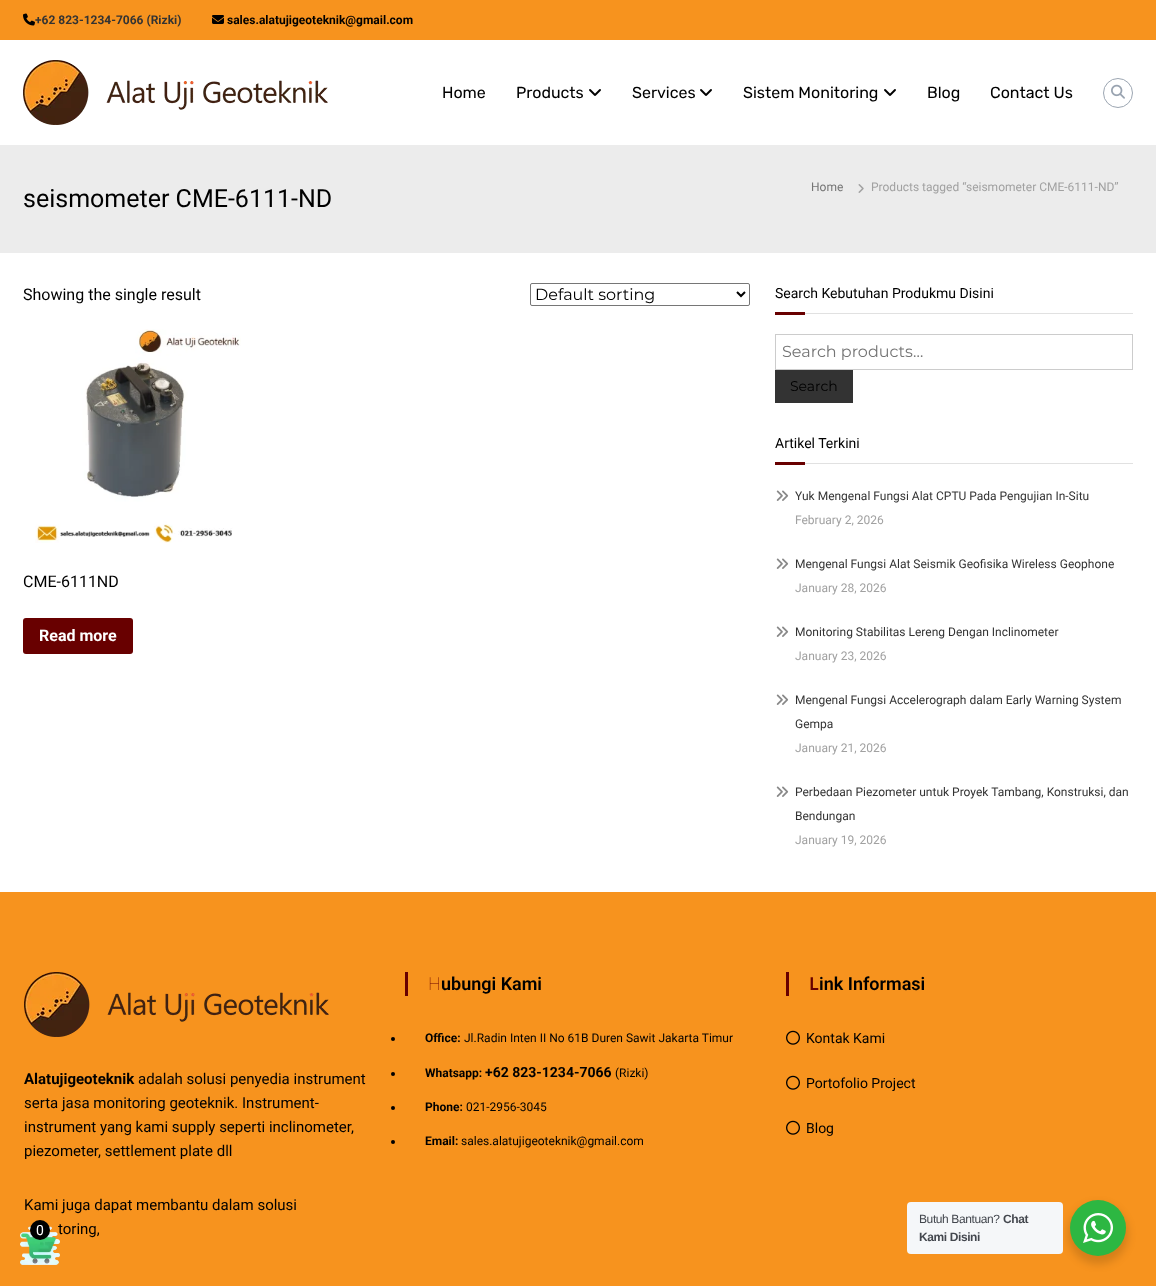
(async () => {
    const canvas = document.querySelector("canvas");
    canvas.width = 1156;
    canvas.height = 1286;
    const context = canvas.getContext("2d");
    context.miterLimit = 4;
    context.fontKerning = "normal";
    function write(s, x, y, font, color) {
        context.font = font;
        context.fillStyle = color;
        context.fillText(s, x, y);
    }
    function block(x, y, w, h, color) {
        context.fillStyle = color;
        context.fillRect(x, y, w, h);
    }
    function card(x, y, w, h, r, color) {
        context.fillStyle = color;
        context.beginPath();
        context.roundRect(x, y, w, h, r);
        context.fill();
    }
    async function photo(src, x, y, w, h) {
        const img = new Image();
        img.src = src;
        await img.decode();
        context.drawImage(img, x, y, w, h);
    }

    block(0, 0, 1156, 1286, "rgb(255, 255, 255)");
    block(0, 0, 1156, 40, "rgb(247, 147, 30)");
    await photo("media/1.png", 23, 13, 12, 13);
    write("+62 823-1234-7066 (Rizki)", 35, 24, "bold 12px Roboto", "rgb(51, 51, 51)");
    await photo("media/2.png", 212, 15, 12, 9);
    write("sales.alatujigeoteknik@gmail.com", 227, 24, "bold 12px Roboto", "rgb(0, 0, 0)");
    await photo("media/3.png", 23, 60, 305, 65);
    write("Home", 442, 98, "16px Rubik", "rgb(0, 0, 0)");
    write("Products", 516, 98, "16px Rubik", "rgb(0, 0, 0)");
    await photo("media/4.png", 589, 89, 12, 7);
    write("Services", 632, 98, "16px Rubik", "rgb(0, 0, 0)");
    await photo("media/4.png", 700, 89, 12, 7);
    write("Sistem Monitoring", 743, 98, "16px Rubik", "rgb(0, 0, 0)");
    await photo("media/4.png", 884, 89, 12, 7);
    write("Blog", 927, 98, "16px Rubik", "rgb(0, 0, 0)");
    write("Contact Us", 990, 98, "16px Rubik", "rgb(0, 0, 0)");
    context.beginPath();
    context.arc(1118, 93, 14.5, 0, Math.PI * 2);
    context.strokeStyle = "rgb(156, 166, 178)";
    context.stroke();
    await photo("media/5.png", 1111, 84, 14, 15);
    block(0, 145, 1156, 108, "rgb(236, 236, 236)");
    write("Home", 811, 191, "12px Roboto", "rgb(117, 117, 117)");
    await photo("media/6.png", 858, 184, 6, 9);
    write("Products tagged “seismometer CME-6111-ND”", 871, 191, "12px Roboto", "rgb(161, 161, 161)");
    write("seismometer CME-6111-ND", 23, 207, "25px Roboto", "rgb(0, 0, 0)");
    write("Showing the single result", 23, 300, "16px Roboto", "rgb(0, 0, 0)");
    context.beginPath();
    context.roundRect(530.5, 283.5, 219, 22, 1.5);
    context.strokeStyle = "rgb(118, 118, 118)";
    context.stroke();
    context.beginPath();
    context.moveTo(737, 292);
    context.lineTo(741, 296);
    context.lineTo(745, 292);
    context.strokeStyle = "rgb(0, 0, 0)";
    context.lineWidth = 2;
    context.stroke();
    write("Default sorting", 535, 300, "16px Montserrat", "rgb(0, 0, 0)");
    await photo("media/7.png", 35, 329, 206, 214);
    write("CME-6111ND", 23, 587, "16px Roboto", "rgb(0, 0, 0)");
    card(23, 618, 110, 36, 3, "rgb(104, 0, 0)");
    write("Read more", 39, 641, "bold 16px Roboto", "rgb(255, 255, 255)");
    write("Search Kebutuhan Produkmu Disini", 775, 298, "14px Roboto", "rgb(0, 0, 0)");
    block(775, 312, 30, 3, "rgb(104, 0, 0)");
    block(805, 313, 328, 1, "rgb(225, 225, 225)");
    context.strokeStyle = "rgb(204, 204, 204)";
    context.lineWidth = 1;
    context.strokeRect(775.5, 334.5, 357, 35);
    write("Search products…", 782, 357, "16px Montserrat", "rgb(117, 117, 117)");
    block(775, 370, 78, 33, "rgb(51, 51, 51)");
    write("Search", 790, 391, "14px Montserrat", "rgb(0, 0, 0)");
    write("Artikel Terkini", 775, 448, "14px Roboto", "rgb(0, 0, 0)");
    block(775, 462, 30, 3, "rgb(104, 0, 0)");
    block(805, 463, 328, 1, "rgb(225, 225, 225)");
    await photo("media/8.png", 776, 490, 13, 11);
    write("Yuk Mengenal Fungsi Alat CPTU Pada Pengujian In-Situ", 795, 500, "12px Roboto", "rgb(51, 51, 51)");
    write("February 2, 2026", 795, 524, "12px Roboto", "rgb(161, 161, 161)");
    await photo("media/8.png", 776, 558, 13, 11);
    write("Mengenal Fungsi Alat Seismik Geofisika Wireless Geophone", 795, 568, "12px Roboto", "rgb(51, 51, 51)");
    write("January 28, 2026", 795, 592, "12px Roboto", "rgb(161, 161, 161)");
    await photo("media/8.png", 776, 626, 13, 11);
    write("Monitoring Stabilitas Lereng Dengan Inclinometer", 795, 636, "12px Roboto", "rgb(51, 51, 51)");
    write("January 23, 2026", 795, 660, "12px Roboto", "rgb(161, 161, 161)");
    await photo("media/8.png", 776, 694, 13, 11);
    write("Mengenal Fungsi Accelerograph dalam Early Warning System", 795, 704, "12px Roboto", "rgb(51, 51, 51)");
    write("Gempa", 795, 728, "12px Roboto", "rgb(51, 51, 51)");
    write("January 21, 2026", 795, 752, "12px Roboto", "rgb(161, 161, 161)");
    await photo("media/8.png", 776, 786, 13, 11);
    write("Perbedaan Piezometer untuk Proyek Tambang, Konstruksi, dan", 795, 796, "12px Roboto", "rgb(51, 51, 51)");
    write("Bendungan", 795, 820, "12px Roboto", "rgb(51, 51, 51)");
    write("January 19, 2026", 795, 844, "12px Roboto", "rgb(161, 161, 161)");
    block(0, 892, 1156, 394, "rgb(247, 147, 30)");
    block(405, 972, 3, 24, "rgb(104, 0, 0)");
    write("H", 428, 990, "100 18px Noto Sans", "rgb(104, 0, 0)");
    write("ubungi Kami", 441, 990, "600 18px Roboto", "rgb(0, 0, 0)");
    context.beginPath();
    context.arc(393, 1039, 2, 0, Math.PI * 2);
    context.fill();
    write("Office:", 425, 1042, "bold 12px Roboto", "rgb(0, 0, 0)");
    write("Jl.Radin Inten II No 61B Duren Sawit Jakarta Timur", 464, 1042, "12px Roboto", "rgb(0, 0, 0)");
    context.beginPath();
    context.arc(393, 1074, 2, 0, Math.PI * 2);
    context.fill();
    write("Whatsapp:", 425, 1077, "bold 12px Roboto", "rgb(0, 0, 0)");
    write("+62 823-1234-7066", 485, 1077, "bold 14px Roboto", "rgb(0, 0, 0)");
    write("(Rizki)", 615, 1077, "12px Roboto", "rgb(0, 0, 0)");
    context.beginPath();
    context.arc(393, 1108, 2, 0, Math.PI * 2);
    context.fill();
    write("Phone:", 425, 1111, "bold 12px Roboto", "rgb(0, 0, 0)");
    write("021-2956-3045", 466, 1111, "12px Roboto", "rgb(0, 0, 0)");
    context.beginPath();
    context.arc(393, 1142, 2, 0, Math.PI * 2);
    context.fill();
    write("Email:", 425, 1145, "bold 12px Roboto", "rgb(0, 0, 0)");
    write("sales.alatujigeoteknik@gmail.com", 461, 1145, "12px Roboto", "rgb(0, 0, 0)");
    block(786, 972, 3, 24, "rgb(104, 0, 0)");
    write("L", 809, 990, "600 18px Noto Sans", "rgb(104, 0, 0)");
    write("ink Informasi", 819, 990, "600 18px Roboto", "rgb(0, 0, 0)");
    await photo("media/9.png", 786, 1030, 14, 15);
    write("Kontak Kami", 806, 1043, "14px Roboto", "rgb(0, 0, 0)");
    await photo("media/9.png", 786, 1075, 14, 15);
    write("Portofolio Project", 806, 1088, "14px Roboto", "rgb(0, 0, 0)");
    await photo("media/9.png", 786, 1120, 14, 15);
    write("Blog", 806, 1133, "14px Roboto", "rgb(0, 0, 0)");
    await photo("media/10.png", 24, 972, 305, 65);
    write("Alatujigeoteknik", 24, 1084, "bold 15px Roboto", "rgb(0, 0, 0)");
    write("adalah solusi penyedia instrument", 138, 1084, "15px Roboto", "rgb(0, 0, 0)");
    write("serta jasa monitoring geoteknik. Instrument-", 24, 1108, "15px Roboto", "rgb(0, 0, 0)");
    write("instrument yang kami supply seperti inclinometer,", 24, 1132, "15px Roboto", "rgb(0, 0, 0)");
    write("piezometer, settlement plate dll", 24, 1156, "15px Roboto", "rgb(0, 0, 0)");
    write("Kami juga dapat membantu dalam solusi", 24, 1210, "15px Roboto", "rgb(0, 0, 0)");
    write("toring,", 58, 1234, "15px Roboto", "rgb(0, 0, 0)");
    await photo("media/11.png", 20, 1226, 40, 39);
    context.beginPath();
    context.arc(40, 1230, 10, 0, Math.PI * 2);
    context.fill();
    write("0", 36, 1235, "14px Roboto", "rgb(255, 255, 255)");
    context.fillStyle = "rgba(0, 0, 0, 0.14)";
    context.filter = "blur(4px)";
    context.beginPath();
    context.roundRect(1068, 1204, 60, 60, 30);
    context.fill();
    context.filter = "none";
    card(907, 1202, 156, 52, 4, "rgb(245, 247, 249)");
    context.letterSpacing = "-0.4px";
    write("Butuh Bantuan?", 919, 1223, "12px Liberation Sans", "rgb(67, 71, 78)");
    write("Chat", 1003, 1223, "bold 12px Liberation Sans", "rgb(67, 71, 78)");
    write("Kami Disini", 919, 1241, "bold 12px Liberation Sans", "rgb(67, 71, 78)");
    context.fillStyle = "rgb(45, 183, 66)";
    context.beginPath();
    context.arc(1098, 1228, 28, 0, Math.PI * 2);
    context.fill();
    await photo("media/12.png", 1083, 1213, 30, 30);
})();
